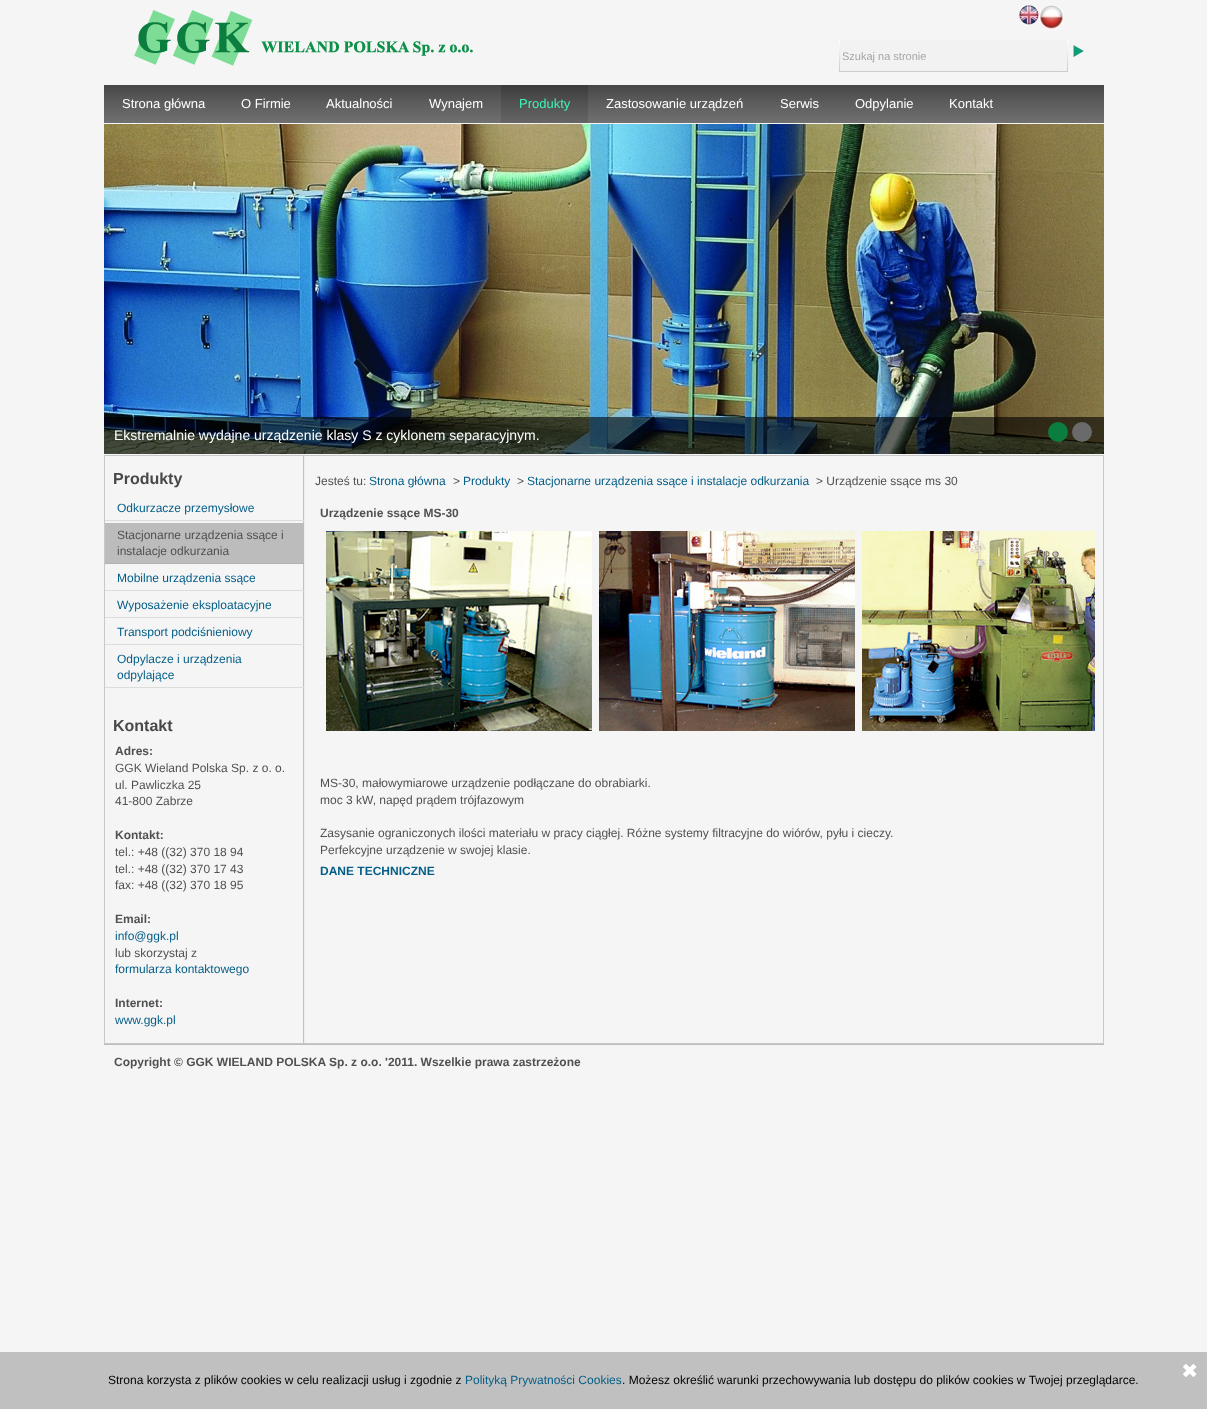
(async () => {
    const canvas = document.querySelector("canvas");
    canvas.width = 1207;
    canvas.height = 1409;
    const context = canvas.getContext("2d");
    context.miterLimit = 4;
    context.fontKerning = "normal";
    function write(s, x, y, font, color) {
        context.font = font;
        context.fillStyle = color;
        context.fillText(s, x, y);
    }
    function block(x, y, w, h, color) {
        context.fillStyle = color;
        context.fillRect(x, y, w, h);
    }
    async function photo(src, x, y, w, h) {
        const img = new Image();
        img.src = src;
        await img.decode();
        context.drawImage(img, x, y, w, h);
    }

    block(0, 0, 1207, 1409, "rgb(245, 245, 245)");
    await photo("media/1.png", 134, 10, 339, 56);
    await photo("media/2.png", 1019, 5, 20, 20);
    await photo("media/3.png", 1039, 5, 25, 25);
    await photo("media/4.png", 839, 40, 229, 32);
    write("Szukaj na stronie", 842, 60, "11px Liberation Sans", "rgb(166, 166, 166)");
    await photo("media/5.png", 1073, 45, 11, 12);
    await photo("media/6.png", 104, 85, 1000, 38);
    write("Strona główna", 122, 108, "13px Liberation Sans", "rgb(255, 255, 255)");
    write("O Firmie", 241, 108, "13px Liberation Sans", "rgb(255, 255, 255)");
    write("Aktualności", 326, 108, "13px Liberation Sans", "rgb(255, 255, 255)");
    write("Wynajem", 429, 108, "13px Liberation Sans", "rgb(255, 255, 255)");
    await photo("media/7.png", 501, 85, 87, 38);
    write("Produkty", 519, 108, "13px Liberation Sans", "rgb(65, 243, 182)");
    write("Zastosowanie urządzeń", 606, 108, "13px Liberation Sans", "rgb(255, 255, 255)");
    write("Serwis", 780, 108, "13px Liberation Sans", "rgb(255, 255, 255)");
    write("Odpylanie", 855, 108, "13px Liberation Sans", "rgb(255, 255, 255)");
    write("Kontakt", 949, 108, "13px Liberation Sans", "rgb(255, 255, 255)");
    await photo("media/8.png", 104, 124, 1000, 330);
    block(104, 417, 1000, 37, "rgba(0, 0, 0, 0.6)");
    write("Ekstremalnie wydajne urządzenie klasy S z cyklonem separacyjnym.", 114, 440, "14px Liberation Sans", "rgb(255, 255, 255)");
    context.fillStyle = "rgb(11, 125, 62)";
    context.beginPath();
    context.arc(1058, 432, 10, 0, Math.PI * 2);
    context.fill();
    context.fillStyle = "rgb(106, 106, 106)";
    context.beginPath();
    context.arc(1082, 432, 10, 0, Math.PI * 2);
    context.fill();
    context.strokeStyle = "rgb(200, 200, 200)";
    context.strokeRect(104.5, 455.5, 999, 588);
    await photo("media/9.png", 303, 456, 2, 587);
    write("Produkty", 113, 484, "bold 16px Liberation Sans", "rgb(72, 72, 72)");
    block(105, 520, 199, 1, "rgb(220, 220, 220)");
    write("Odkurzacze przemysłowe", 117, 512, "12px Liberation Sans", "rgb(4, 94, 136)");
    block(105, 523, 199, 40, "rgb(188, 188, 188)");
    block(105, 563, 199, 1, "rgb(178, 178, 178)");
    write("Stacjonarne urządzenia ssące i", 117, 539, "12px Liberation Sans", "rgb(81, 81, 81)");
    write("instalacje odkurzania", 117, 555, "12px Liberation Sans", "rgb(81, 81, 81)");
    block(105, 590, 199, 1, "rgb(220, 220, 220)");
    write("Mobilne urządzenia ssące", 117, 582, "12px Liberation Sans", "rgb(4, 94, 136)");
    block(105, 617, 199, 1, "rgb(220, 220, 220)");
    write("Wyposażenie eksploatacyjne", 117, 609, "12px Liberation Sans", "rgb(4, 94, 136)");
    block(105, 644, 199, 1, "rgb(220, 220, 220)");
    write("Transport podciśnieniowy", 117, 636, "12px Liberation Sans", "rgb(4, 94, 136)");
    block(105, 687, 199, 1, "rgb(220, 220, 220)");
    write("Odpylacze i urządzenia", 117, 663, "12px Liberation Sans", "rgb(4, 94, 136)");
    write("odpylające", 117, 679, "12px Liberation Sans", "rgb(4, 94, 136)");
    write("Kontakt", 113, 731, "bold 16px Liberation Sans", "rgb(72, 72, 72)");
    write("Adres:", 115, 755, "bold 12px Liberation Sans", "rgb(81, 81, 81)");
    write("GGK Wieland Polska Sp. z o. o.", 115, 772, "12px Liberation Sans", "rgb(81, 81, 81)");
    write("ul. Pawliczka 25", 115, 789, "12px Liberation Sans", "rgb(81, 81, 81)");
    write("41-800 Zabrze", 115, 805, "12px Liberation Sans", "rgb(81, 81, 81)");
    write("Kontakt:", 115, 839, "bold 12px Liberation Sans", "rgb(81, 81, 81)");
    write("tel.: +48 ((32) 370 18 94", 115, 856, "12px Liberation Sans", "rgb(81, 81, 81)");
    write("tel.: +48 ((32) 370 17 43", 115, 873, "12px Liberation Sans", "rgb(81, 81, 81)");
    write("fax: +48 ((32) 370 18 95", 115, 889, "12px Liberation Sans", "rgb(81, 81, 81)");
    write("Email:", 115, 923, "bold 12px Liberation Sans", "rgb(81, 81, 81)");
    write("info@ggk.pl", 115, 940, "12px Liberation Sans", "rgb(4, 94, 136)");
    write("lub skorzystaj z", 115, 957, "12px Liberation Sans", "rgb(81, 81, 81)");
    write("formularza kontaktowego", 115, 973, "12px Liberation Sans", "rgb(4, 94, 136)");
    write("Internet:", 115, 1007, "bold 12px Liberation Sans", "rgb(81, 81, 81)");
    write("www.ggk.pl", 115, 1024, "12px Liberation Sans", "rgb(4, 94, 136)");
    write("Jesteś tu:", 315, 485, "12px Liberation Sans", "rgb(81, 81, 81)");
    write("Strona główna", 369, 485, "12px Liberation Sans", "rgb(4, 94, 136)");
    write(">", 453, 485, "12px Liberation Sans", "rgb(81, 81, 81)");
    write("Produkty", 463, 485, "12px Liberation Sans", "rgb(4, 94, 136)");
    write(">", 517, 485, "12px Liberation Sans", "rgb(81, 81, 81)");
    write("Stacjonarne urządzenia ssące i instalacje odkurzania", 527, 485, "12px Liberation Sans", "rgb(4, 94, 136)");
    write("> Urządzenie ssące ms 30", 816, 485, "12px Liberation Sans", "rgb(81, 81, 81)");
    write("Urządzenie ssące MS-30", 320, 517, "bold 12px Liberation Sans", "rgb(81, 81, 81)");
    await photo("media/10.png", 326, 531, 266, 200);
    await photo("media/11.png", 599, 531, 256, 200);
    await photo("media/12.png", 862, 531, 233, 200);
    write("MS-30, małowymiarowe urządzenie podłączane do obrabiarki.", 320, 787, "12px Liberation Sans", "rgb(81, 81, 81)");
    write("moc 3 kW, napęd prądem trójfazowym", 320, 804, "12px Liberation Sans", "rgb(81, 81, 81)");
    write("Zasysanie ograniczonych ilości materiału w pracy ciągłej. Różne systemy filtracyjne do wiórów, pyłu i cieczy.", 320, 837, "12px Liberation Sans", "rgb(81, 81, 81)");
    write("Perfekcyjne urządzenie w swojej klasie.", 320, 854, "12px Liberation Sans", "rgb(81, 81, 81)");
    write("DANE TECHNICZNE", 320, 875, "bold 12px Liberation Sans", "rgb(4, 94, 136)");
    block(104, 1044, 1000, 1, "rgb(189, 189, 189)");
    write("Copyright © GGK WIELAND POLSKA Sp. z o.o. '2011. Wszelkie prawa zastrzeżone", 114, 1066, "bold 12px Liberation Sans", "rgb(81, 81, 81)");
    block(0, 1352, 1207, 57, "rgb(192, 192, 192)");
    await photo("media/13.png", 1183, 1364, 14, 13);
    write("Strona korzysta z plików cookies w celu realizacji usług i zgodnie z", 108, 1384, "12px Liberation Sans", "rgb(0, 0, 0)");
    write("Polityką Prywatności Cookies", 465, 1384, "12px Liberation Sans", "rgb(4, 94, 136)");
    write(". Możesz określić warunki przechowywania lub dostępu do plików cookies w Twojej przeglądarce.", 622, 1384, "12px Liberation Sans", "rgb(0, 0, 0)");
})();
